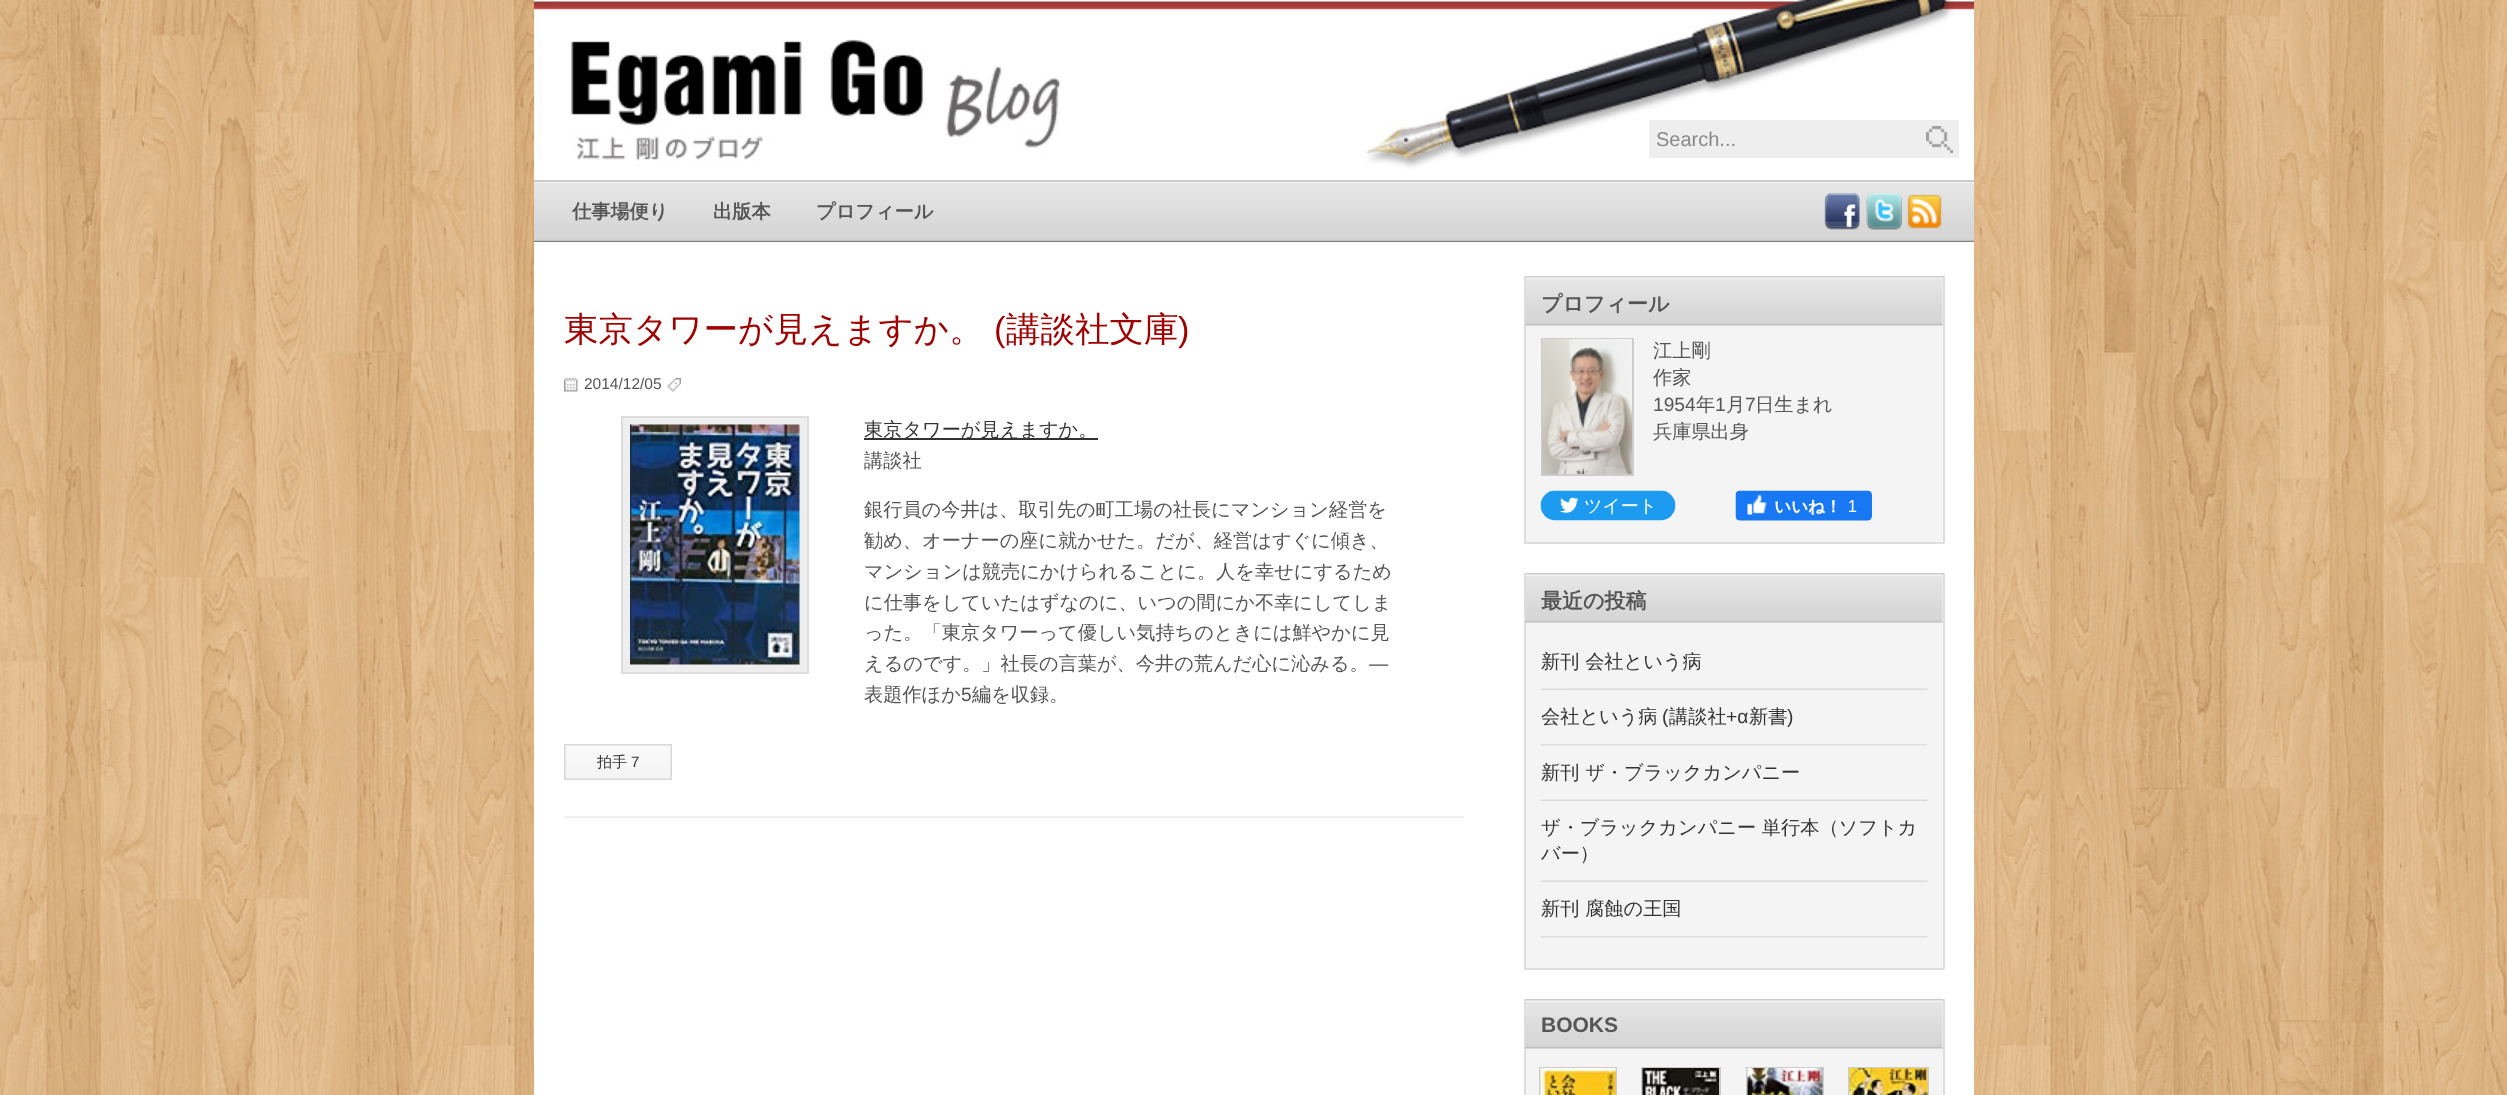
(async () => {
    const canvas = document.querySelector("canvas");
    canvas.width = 2507;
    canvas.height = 1095;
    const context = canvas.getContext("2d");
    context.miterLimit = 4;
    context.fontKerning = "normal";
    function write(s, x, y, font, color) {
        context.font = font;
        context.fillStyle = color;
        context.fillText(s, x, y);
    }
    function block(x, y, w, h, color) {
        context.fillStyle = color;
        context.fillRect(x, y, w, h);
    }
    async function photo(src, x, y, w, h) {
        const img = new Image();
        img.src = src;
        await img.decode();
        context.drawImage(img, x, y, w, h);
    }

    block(0, 0, 2507, 1095, "rgb(255, 255, 255)");
    await photo("media/1.png", 0, 0, 2507, 1095);
    block(534, 242, 1440, 853, "rgb(255, 255, 255)");
    await photo("media/2.png", 534, 0, 1440, 180);
    await photo("media/3.png", 539, 39, 522, 122);
    block(1649, 120, 310, 38, "rgb(238, 238, 238)");
    await photo("media/4.png", 1926, 126, 27, 27);
    write("Search...", 1656, 146, "20px Liberation Sans", "rgb(136, 136, 136)");
    block(534, 241, 1440, 1, "rgb(74, 74, 74)");
    await photo("media/5.png", 534, 182, 1440, 60);
    block(534, 180, 1440, 2, "rgb(204, 204, 204)");
    write("仕事場便り", 572, 218, "bold 19.2px WenQuanYi Zen Hei", "rgb(85, 85, 85)");
    write("出版本", 713, 218, "bold 19.2px WenQuanYi Zen Hei", "rgb(85, 85, 85)");
    write("プロフィール", 816, 218, "bold 19.2px WenQuanYi Zen Hei", "rgb(85, 85, 85)");
    await photo("media/6.png", 1824, 193, 36, 37);
    await photo("media/7.png", 1866, 193, 36, 37);
    await photo("media/8.png", 1907, 194, 35, 35);
    block(564, 816, 900, 2, "rgb(238, 238, 238)");
    write("東京タワーが見えますか。", 564, 341, "500 34.5px WenQuanYi Zen Hei", "rgb(159, 0, 0)");
    write("(", 994, 341, "34.5px Liberation Sans", "rgb(159, 0, 0)");
    write("講談社文庫", 1006, 341, "500 34.5px WenQuanYi Zen Hei", "rgb(159, 0, 0)");
    write(")", 1178, 341, "34.5px Liberation Sans", "rgb(159, 0, 0)");
    await photo("media/9.png", 564, 378, 14, 14);
    write("2014/12/05", 584, 389, "15.5px Liberation Sans", "rgb(85, 85, 85)");
    await photo("media/10.png", 667, 378, 14, 14);
    context.fillStyle = "rgb(238, 238, 238)";
    context.beginPath();
    context.rect(622, 417, 186, 256);
    context.fill();
    context.strokeStyle = "rgb(221, 221, 221)";
    context.lineWidth = 2;
    context.stroke();
    await photo("media/11.png", 630, 424, 170, 241);
    block(864, 438, 234, 2, "rgb(51, 51, 51)");
    write("東京タワーが見えますか。", 864, 436, "500 19.2px WenQuanYi Zen Hei", "rgb(51, 51, 51)");
    write("講談社", 864, 467, "500 19.2px WenQuanYi Zen Hei", "rgb(85, 85, 85)");
    write("銀行員の今井は、取引先の町工場の社長にマンション経営を", 864, 516, "500 19.2px WenQuanYi Zen Hei", "rgb(85, 85, 85)");
    write("勧め、オーナーの座に就かせた。だが、経営はすぐに傾き、", 864, 547, "500 19.2px WenQuanYi Zen Hei", "rgb(85, 85, 85)");
    write("マンションは競売にかけられることに。人を幸せにするため", 864, 578, "500 19.2px WenQuanYi Zen Hei", "rgb(85, 85, 85)");
    write("に仕事をしていたはずなのに、いつの間にか不幸にしてしま", 864, 609, "500 19.2px WenQuanYi Zen Hei", "rgb(85, 85, 85)");
    write("った。「東京タワーって優しい気持ちのときには鮮やかに見", 864, 639, "500 19.2px WenQuanYi Zen Hei", "rgb(85, 85, 85)");
    write("えるのです。」社長の言葉が、今井の荒んだ心に沁みる。", 864, 670, "500 19.2px WenQuanYi Zen Hei", "rgb(85, 85, 85)");
    write("―", 1369, 670, "19.2px Liberation Sans", "rgb(85, 85, 85)");
    write("表題作ほか", 864, 701, "500 19.2px WenQuanYi Zen Hei", "rgb(85, 85, 85)");
    write("5", 961, 701, "19.2px Liberation Sans", "rgb(85, 85, 85)");
    write("編を収録。", 972, 701, "500 19.2px WenQuanYi Zen Hei", "rgb(85, 85, 85)");
    await photo("media/12.png", 564, 744, 108, 36);
    write("拍手", 597, 767, "500 15px WenQuanYi Zen Hei", "rgb(51, 51, 51)");
    write("7", 631, 767, "15px Liberation Sans", "rgb(51, 51, 51)");
    block(1526, 278, 417, 264, "rgb(244, 244, 244)");
    block(1524, 276, 420, 2, "rgb(204, 204, 204)");
    block(1943, 276, 2, 267, "rgb(221, 221, 221)");
    block(1524, 542, 420, 2, "rgb(221, 221, 221)");
    block(1524, 276, 2, 267, "rgb(221, 221, 221)");
    await photo("media/13.png", 1525, 277, 418, 49);
    write("プロフィール", 1541, 311, "bold 21px WenQuanYi Zen Hei", "rgb(85, 85, 85)");
    context.strokeStyle = "rgb(204, 204, 204)";
    context.strokeRect(1542, 339, 91, 136);
    await photo("media/14.png", 1542, 339, 90, 135);
    write("江上剛", 1653, 357, "500 19.2px WenQuanYi Zen Hei", "rgb(85, 85, 85)");
    write("作家", 1653, 384, "500 19.2px WenQuanYi Zen Hei", "rgb(85, 85, 85)");
    write("1954", 1653, 411, "19.2px Liberation Sans", "rgb(85, 85, 85)");
    write("年", 1696, 411, "500 19.2px WenQuanYi Zen Hei", "rgb(85, 85, 85)");
    write("1", 1715, 411, "19.2px Liberation Sans", "rgb(85, 85, 85)");
    write("月", 1726, 411, "500 19.2px WenQuanYi Zen Hei", "rgb(85, 85, 85)");
    write("7", 1745, 411, "19.2px Liberation Sans", "rgb(85, 85, 85)");
    write("日生まれ", 1755, 411, "500 19.2px WenQuanYi Zen Hei", "rgb(85, 85, 85)");
    write("兵庫県出身", 1653, 438, "500 19.2px WenQuanYi Zen Hei", "rgb(85, 85, 85)");
    await photo("media/15.png", 1540, 490, 136, 31);
    await photo("media/16.png", 1735, 490, 137, 31);
    block(1526, 575, 417, 393, "rgb(244, 244, 244)");
    block(1524, 573, 420, 2, "rgb(204, 204, 204)");
    block(1943, 573, 2, 396, "rgb(221, 221, 221)");
    block(1524, 968, 420, 2, "rgb(221, 221, 221)");
    block(1524, 573, 2, 396, "rgb(221, 221, 221)");
    await photo("media/13.png", 1525, 574, 418, 49);
    write("最近の投稿", 1541, 608, "bold 21px WenQuanYi Zen Hei", "rgb(85, 85, 85)");
    await photo("media/17.png", 1540, 688, 388, 2);
    write("新刊 会社という病", 1541, 668, "500 19.2px WenQuanYi Zen Hei", "rgb(51, 51, 51)");
    await photo("media/18.png", 1540, 744, 388, 2);
    write("会社という病", 1541, 723, "500 19.2px WenQuanYi Zen Hei", "rgb(51, 51, 51)");
    write("(", 1662, 723, "19.2px Liberation Sans", "rgb(51, 51, 51)");
    write("講談社", 1669, 723, "500 19.2px WenQuanYi Zen Hei", "rgb(51, 51, 51)");
    write("+α", 1726, 723, "19.2px Liberation Sans", "rgb(51, 51, 51)");
    write("新書", 1749, 723, "500 19.2px WenQuanYi Zen Hei", "rgb(51, 51, 51)");
    write(")", 1787, 723, "19.2px Liberation Sans", "rgb(51, 51, 51)");
    await photo("media/19.png", 1540, 799, 388, 2);
    write("新刊 ザ・ブラックカンパニー", 1541, 779, "500 19.2px WenQuanYi Zen Hei", "rgb(51, 51, 51)");
    await photo("media/20.png", 1540, 880, 388, 2);
    write("ザ・ブラックカンパニー 単行本（ソフトカ", 1541, 834, "500 19.2px WenQuanYi Zen Hei", "rgb(51, 51, 51)");
    write("バー）", 1541, 860, "500 19.2px WenQuanYi Zen Hei", "rgb(51, 51, 51)");
    await photo("media/21.png", 1540, 936, 388, 2);
    write("新刊 腐蝕の王国", 1541, 915, "500 19.2px WenQuanYi Zen Hei", "rgb(51, 51, 51)");
    block(1526, 1001, 417, 94, "rgb(244, 244, 244)");
    block(1524, 999, 420, 2, "rgb(204, 204, 204)");
    block(1943, 999, 2, 96, "rgb(221, 221, 221)");
    block(1524, 999, 2, 96, "rgb(221, 221, 221)");
    await photo("media/13.png", 1525, 1000, 418, 49);
    write("BOOKS", 1541, 1032, "bold 21px Liberation Sans", "rgb(85, 85, 85)");
    context.strokeRect(1540, 1068, 76, 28);
    await photo("media/22.png", 1540, 1068, 76, 27);
    context.strokeRect(1642, 1068, 78, 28);
    await photo("media/23.png", 1642, 1068, 77, 27);
    context.strokeRect(1747, 1068, 76, 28);
    await photo("media/24.png", 1747, 1068, 76, 27);
    context.strokeRect(1849, 1068, 79, 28);
    await photo("media/25.png", 1849, 1068, 79, 27);
})();
